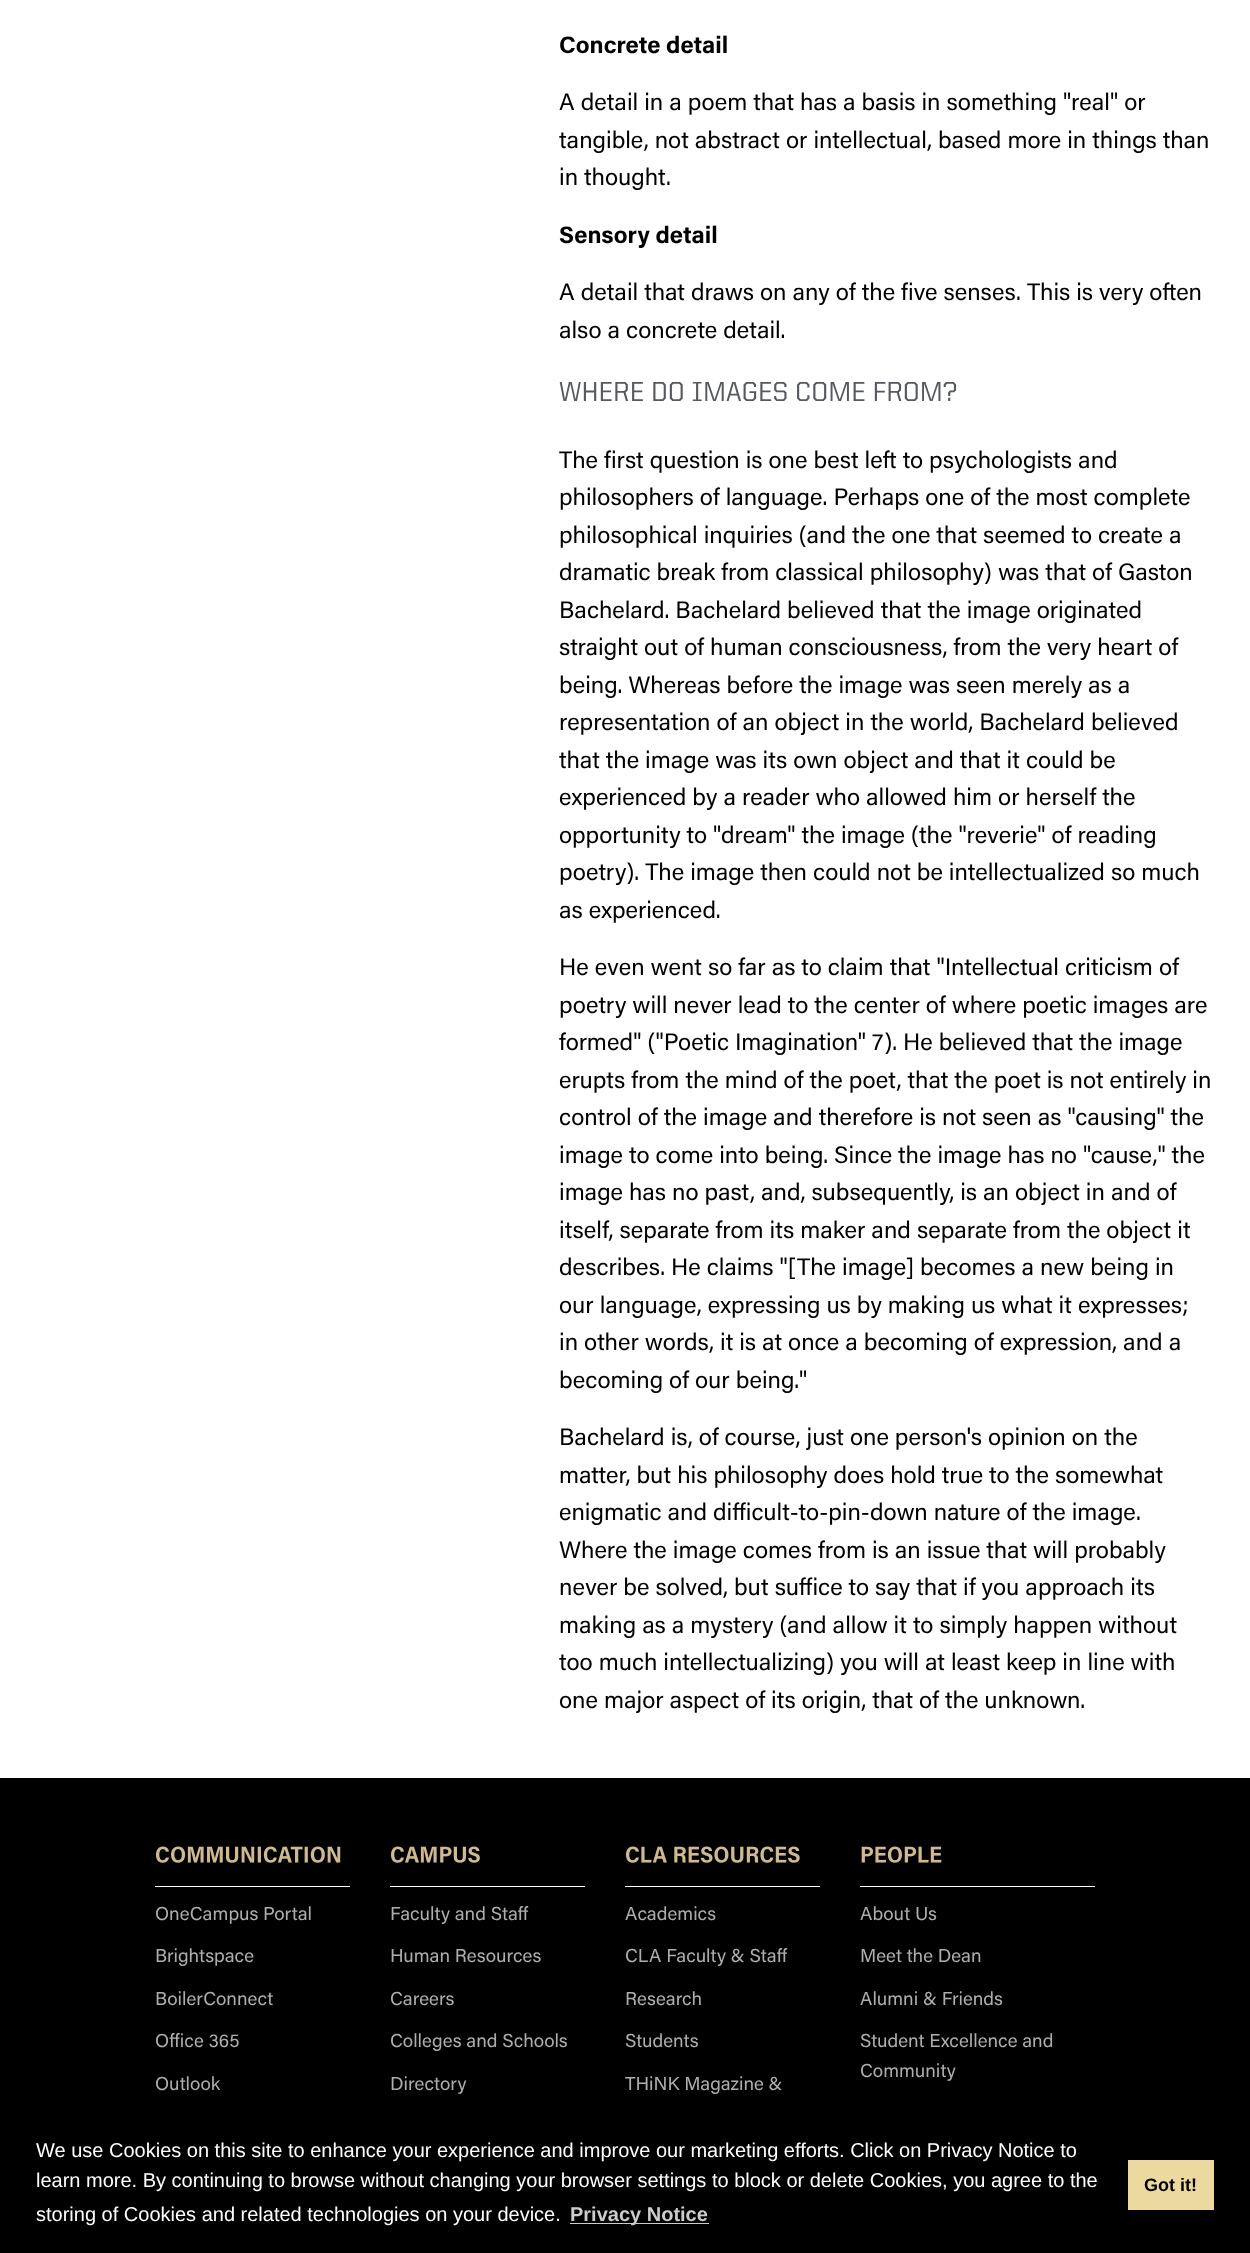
(async () => {
    const canvas = document.querySelector("canvas");
    canvas.width = 1250;
    canvas.height = 2253;
    const context = canvas.getContext("2d");
    context.miterLimit = 4;
    context.fontKerning = "normal";
    function write(s, x, y, font, color) {
        context.font = font;
        context.fillStyle = color;
        context.fillText(s, x, y);
    }
    function block(x, y, w, h, color) {
        context.fillStyle = color;
        context.fillRect(x, y, w, h);
    }
    async function photo(src, x, y, w, h) {
        const img = new Image();
        img.src = src;
        await img.decode();
        context.drawImage(img, x, y, w, h);
    }

    block(0, 0, 1250, 2253, "rgb(255, 255, 255)");
    write("Concrete detail", 559, 53, "bold 23.75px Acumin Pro", "rgb(0, 0, 0)");
    write("A detail in a poem that has a basis in something \"real\" or", 559, 110, "23.75px Acumin Pro", "rgb(0, 0, 0)");
    write("tangible, not abstract or intellectual, based more in things than", 559, 148, "23.75px Acumin Pro", "rgb(0, 0, 0)");
    write("in thought.", 559, 185, "23.75px Acumin Pro", "rgb(0, 0, 0)");
    write("Sensory detail", 559, 243, "bold 23.75px Acumin Pro", "rgb(0, 0, 0)");
    write("A detail that draws on any of the five senses. This is very often", 559, 300, "23.75px Acumin Pro", "rgb(0, 0, 0)");
    write("also a concrete detail.", 559, 338, "23.75px Acumin Pro", "rgb(0, 0, 0)");
    write("WHERE DO IMAGES COME FROM?", 559, 401, "500 27.5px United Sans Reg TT", "rgb(85, 89, 96)");
    write("The first question is one best left to psychologists and", 559, 468, "23.75px Acumin Pro", "rgb(0, 0, 0)");
    write("philosophers of language. Perhaps one of the most complete", 559, 505, "23.75px Acumin Pro", "rgb(0, 0, 0)");
    write("philosophical inquiries (and the one that seemed to create a", 559, 543, "23.75px Acumin Pro", "rgb(0, 0, 0)");
    write("dramatic break from classical philosophy) was that of Gaston", 559, 580, "23.75px Acumin Pro", "rgb(0, 0, 0)");
    write("Bachelard. Bachelard believed that the image originated", 559, 618, "23.75px Acumin Pro", "rgb(0, 0, 0)");
    write("straight out of human consciousness, from the very heart of", 559, 655, "23.75px Acumin Pro", "rgb(0, 0, 0)");
    write("being. Whereas before the image was seen merely as a", 559, 693, "23.75px Acumin Pro", "rgb(0, 0, 0)");
    write("representation of an object in the world, Bachelard believed", 559, 730, "23.75px Acumin Pro", "rgb(0, 0, 0)");
    write("that the image was its own object and that it could be", 559, 768, "23.75px Acumin Pro", "rgb(0, 0, 0)");
    write("experienced by a reader who allowed him or herself the", 559, 805, "23.75px Acumin Pro", "rgb(0, 0, 0)");
    write("opportunity to \"dream\" the image (the \"reverie\" of reading", 559, 843, "23.75px Acumin Pro", "rgb(0, 0, 0)");
    write("poetry). The image then could not be intellectualized so much", 559, 880, "23.75px Acumin Pro", "rgb(0, 0, 0)");
    write("as experienced.", 559, 918, "23.75px Acumin Pro", "rgb(0, 0, 0)");
    write("He even went so far as to claim that \"Intellectual criticism of", 559, 975, "23.75px Acumin Pro", "rgb(0, 0, 0)");
    write("poetry will never lead to the center of where poetic images are", 559, 1013, "23.75px Acumin Pro", "rgb(0, 0, 0)");
    write("formed\" (\"Poetic Imagination\" 7). He believed that the image", 559, 1050, "23.75px Acumin Pro", "rgb(0, 0, 0)");
    write("erupts from the mind of the poet, that the poet is not entirely in", 559, 1088, "23.75px Acumin Pro", "rgb(0, 0, 0)");
    write("control of the image and therefore is not seen as \"causing\" the", 559, 1125, "23.75px Acumin Pro", "rgb(0, 0, 0)");
    write("image to come into being. Since the image has no \"cause,\" the", 559, 1163, "23.75px Acumin Pro", "rgb(0, 0, 0)");
    write("image has no past, and, subsequently, is an object in and of", 559, 1200, "23.75px Acumin Pro", "rgb(0, 0, 0)");
    write("itself, separate from its maker and separate from the object it", 559, 1238, "23.75px Acumin Pro", "rgb(0, 0, 0)");
    write("describes. He claims \"[The image] becomes a new being in", 559, 1275, "23.75px Acumin Pro", "rgb(0, 0, 0)");
    write("our language, expressing us by making us what it expresses;", 559, 1313, "23.75px Acumin Pro", "rgb(0, 0, 0)");
    write("in other words, it is at once a becoming of expression, and a", 559, 1350, "23.75px Acumin Pro", "rgb(0, 0, 0)");
    write("becoming of our being.\"", 559, 1388, "23.75px Acumin Pro", "rgb(0, 0, 0)");
    write("Bachelard is, of course, just one person's opinion on the", 559, 1445, "23.75px Acumin Pro", "rgb(0, 0, 0)");
    write("matter, but his philosophy does hold true to the somewhat", 559, 1483, "23.75px Acumin Pro", "rgb(0, 0, 0)");
    write("enigmatic and difficult-to-pin-down nature of the image.", 559, 1520, "23.75px Acumin Pro", "rgb(0, 0, 0)");
    write("Where the image comes from is an issue that will probably", 559, 1558, "23.75px Acumin Pro", "rgb(0, 0, 0)");
    write("never be solved, but suffice to say that if you approach its", 559, 1595, "23.75px Acumin Pro", "rgb(0, 0, 0)");
    write("making as a mystery (and allow it to simply happen without", 559, 1633, "23.75px Acumin Pro", "rgb(0, 0, 0)");
    write("too much intellectualizing) you will at least keep in line with", 559, 1670, "23.75px Acumin Pro", "rgb(0, 0, 0)");
    write("one major aspect of its origin, that of the unknown.", 559, 1708, "23.75px Acumin Pro", "rgb(0, 0, 0)");
    block(0, 1778, 1250, 475, "rgb(0, 0, 0)");
    block(155, 1886, 195, 1, "rgb(255, 255, 255)");
    await photo("media/1.png", 156, 1846, 185, 17);
    write("OneCampus Portal", 155, 1920, "18.75px Acumin Pro", "rgb(173, 173, 173)");
    write("Brightspace", 155, 1962, "18.75px Acumin Pro", "rgb(173, 173, 173)");
    write("BoilerConnect", 155, 2005, "18.75px Acumin Pro", "rgb(173, 173, 173)");
    write("Office 365", 155, 2047, "18.75px Acumin Pro", "rgb(173, 173, 173)");
    write("Outlook", 155, 2090, "18.75px Acumin Pro", "rgb(173, 173, 173)");
    block(390, 1886, 195, 1, "rgb(255, 255, 255)");
    await photo("media/2.png", 391, 1846, 89, 17);
    write("Faculty and Staff", 390, 1920, "18.75px Acumin Pro", "rgb(173, 173, 173)");
    write("Human Resources", 390, 1962, "18.75px Acumin Pro", "rgb(173, 173, 173)");
    write("Careers", 390, 2005, "18.75px Acumin Pro", "rgb(173, 173, 173)");
    write("Colleges and Schools", 390, 2047, "18.75px Acumin Pro", "rgb(173, 173, 173)");
    write("Directory", 390, 2090, "18.75px Acumin Pro", "rgb(173, 173, 173)");
    block(625, 1886, 195, 1, "rgb(255, 255, 255)");
    await photo("media/3.png", 626, 1846, 174, 17);
    write("Academics", 625, 1920, "18.75px Acumin Pro", "rgb(173, 173, 173)");
    write("CLA Faculty & Staff", 625, 1962, "18.75px Acumin Pro", "rgb(173, 173, 173)");
    write("Research", 625, 2005, "18.75px Acumin Pro", "rgb(173, 173, 173)");
    write("Students", 625, 2047, "18.75px Acumin Pro", "rgb(173, 173, 173)");
    write("THiNK Magazine &", 625, 2090, "18.75px Acumin Pro", "rgb(173, 173, 173)");
    block(860, 1886, 235, 1, "rgb(255, 255, 255)");
    await photo("media/4.png", 861, 1846, 81, 17);
    write("About Us", 860, 1920, "18.75px Acumin Pro", "rgb(173, 173, 173)");
    write("Meet the Dean", 860, 1962, "18.75px Acumin Pro", "rgb(173, 173, 173)");
    write("Alumni & Friends", 860, 2005, "18.75px Acumin Pro", "rgb(173, 173, 173)");
    write("Student Excellence and", 860, 2047, "18.75px Acumin Pro", "rgb(173, 173, 173)");
    write("Community", 860, 2077, "18.75px Acumin Pro", "rgb(173, 173, 173)");
    write("We use Cookies on this site to enhance your experience and improve our marketing efforts. Click on Privacy Notice to", 36, 2157, "20px Liberation Sans", "rgb(255, 255, 255)");
    write("learn more. By continuing to browse without changing your browser settings to block or delete Cookies, you agree to the", 36, 2187, "20px Liberation Sans", "rgb(255, 255, 255)");
    write("storing of Cookies and related technologies on your device.", 36, 2221, "20px Liberation Sans", "rgb(255, 255, 255)");
    block(570, 2223, 139, 1, "rgb(204, 204, 204)");
    write("Privacy Notice", 570, 2221, "bold 20px Liberation Sans", "rgb(204, 204, 204)");
    block(1128, 2160, 86, 50, "rgb(235, 217, 159)");
    write("Got it!", 1144, 2191, "bold 18px Liberation Sans", "rgb(0, 0, 0)");
})();
